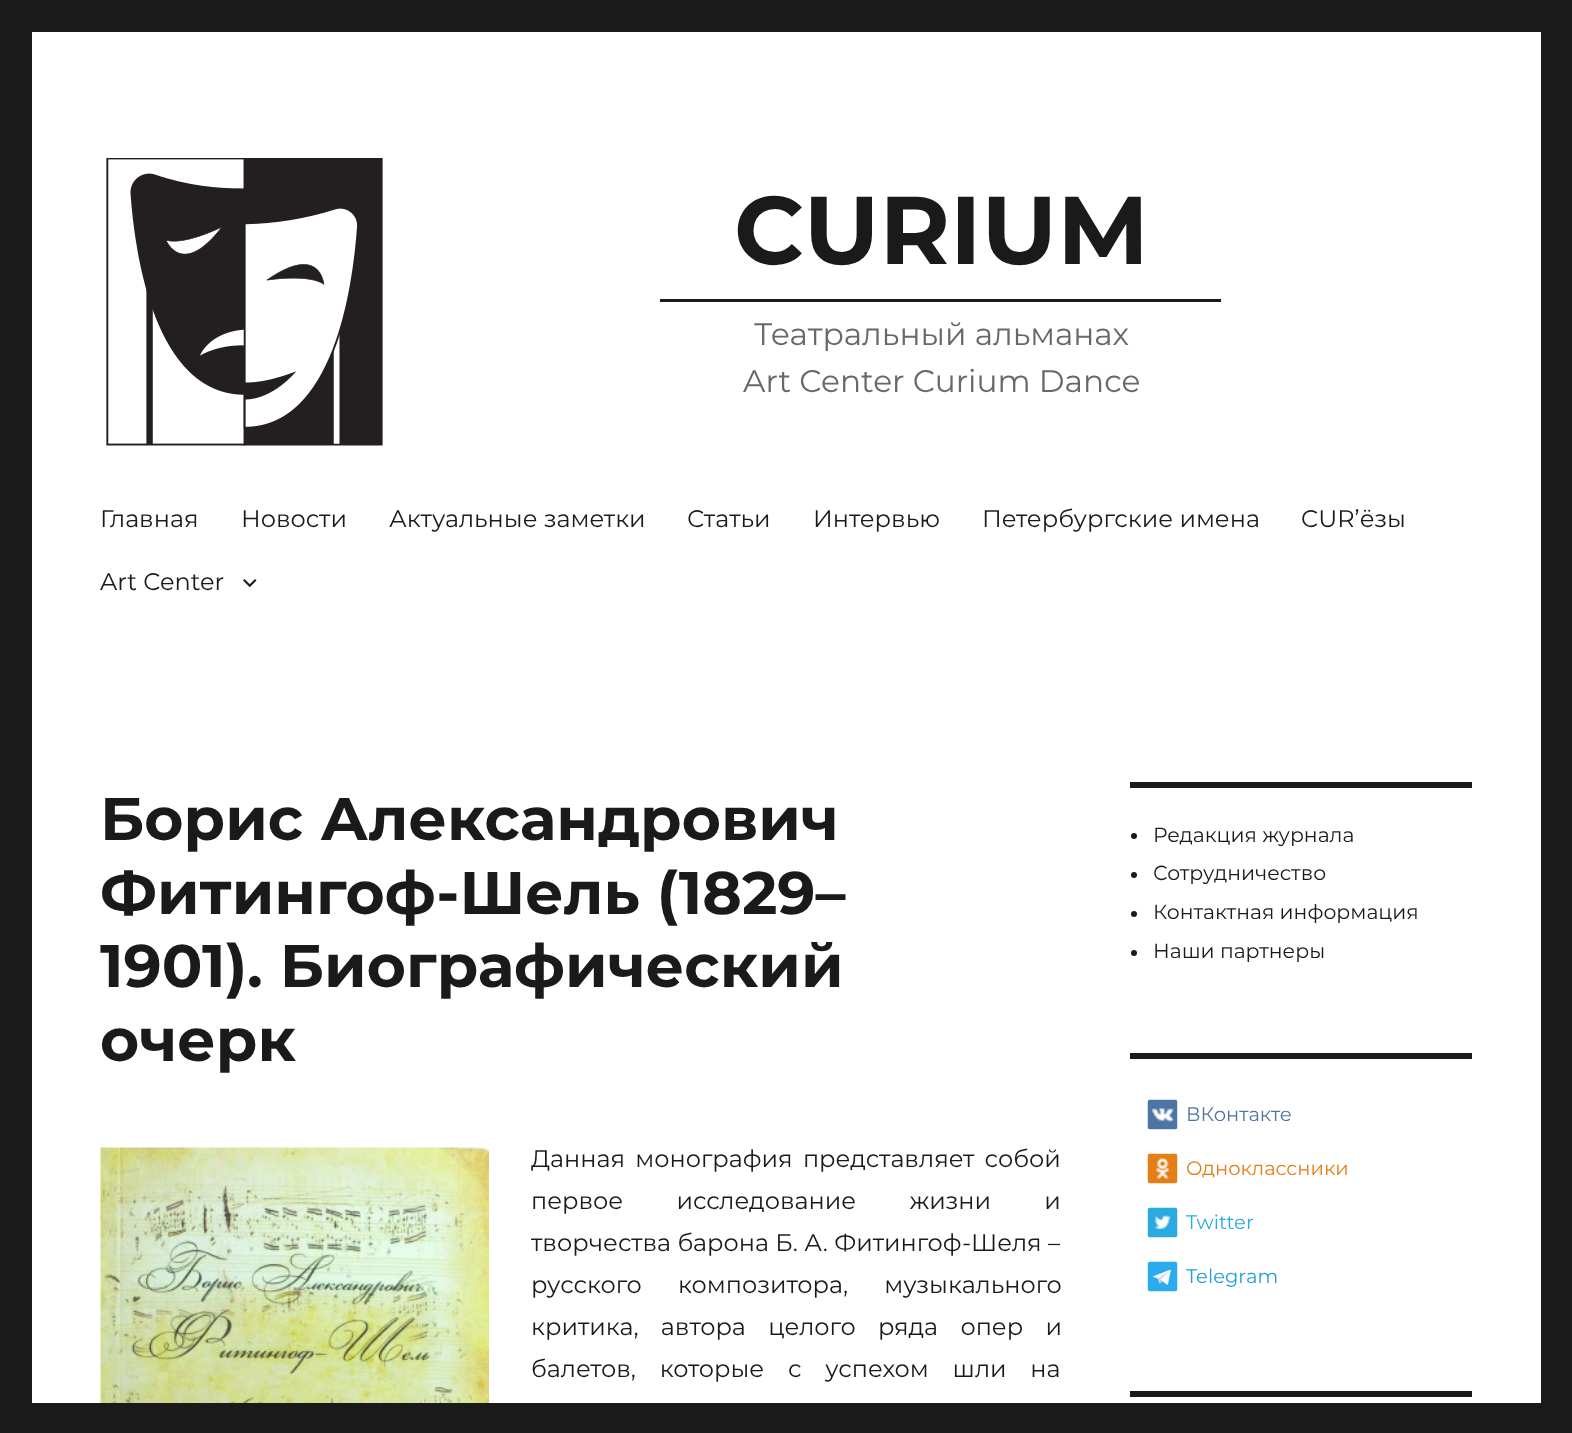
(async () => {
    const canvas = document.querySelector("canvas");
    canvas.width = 1572;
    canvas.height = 1433;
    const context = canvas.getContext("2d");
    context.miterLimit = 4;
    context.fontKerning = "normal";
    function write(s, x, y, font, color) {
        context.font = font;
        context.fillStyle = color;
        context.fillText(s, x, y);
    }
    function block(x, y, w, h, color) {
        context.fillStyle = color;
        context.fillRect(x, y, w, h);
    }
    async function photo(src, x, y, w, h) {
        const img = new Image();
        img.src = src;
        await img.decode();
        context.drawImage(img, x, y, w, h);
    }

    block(0, 0, 1572, 1433, "rgb(26, 26, 26)");
    block(32, 32, 1509, 1371, "rgb(255, 255, 255)");
    await photo("media/1.png", 106, 158, 277, 288);
    write("CURIUM", 734, 264, "bold 96px Montserrat", "rgb(26, 26, 26)");
    block(660, 299, 561, 3, "rgb(26, 26, 26)");
    write("Театральный альманах", 754, 345, "31.25px Montserrat", "rgb(104, 104, 104)");
    write("Art Center Curium Dance", 743, 392, "31.25px Montserrat", "rgb(104, 104, 104)");
    write("Главная", 100, 527, "24px Montserrat", "rgb(26, 26, 26)");
    write("Новости", 241, 527, "24px Montserrat", "rgb(26, 26, 26)");
    write("Актуальные заметки", 389, 527, "24px Montserrat", "rgb(26, 26, 26)");
    write("Статьи", 687, 527, "24px Montserrat", "rgb(26, 26, 26)");
    write("Интервью", 813, 527, "24px Montserrat", "rgb(26, 26, 26)");
    write("Петербургские имена", 982, 527, "24px Montserrat", "rgb(26, 26, 26)");
    write("CUR’ёзы", 1301, 527, "24px Montserrat", "rgb(26, 26, 26)");
    write("Art Center", 100, 590, "24px Montserrat", "rgb(26, 26, 26)");
    await photo("media/2.png", 243, 579, 14, 9);
    write("Борис Александрович", 100, 840, "bold 60px Montserrat", "rgb(26, 26, 26)");
    write("Фитингоф-Шель (1829–", 100, 914, "bold 60px Montserrat", "rgb(26, 26, 26)");
    write("1901). Биографический", 100, 987, "bold 60px Montserrat", "rgb(26, 26, 26)");
    write("очерк", 100, 1061, "bold 60px Montserrat", "rgb(26, 26, 26)");
    await photo("media/3.png", 100, 1147, 389, 256);
    context.wordSpacing = "4px";
    write("Данная монография представляет собой", 531, 1167, "24px Montserrat", "rgb(26, 26, 26)");
    context.wordSpacing = "47px";
    write("первое исследование жизни и", 531, 1209, "24px Montserrat", "rgb(26, 26, 26)");
    context.wordSpacing = "0px";
    write("творчества барона Б. А. Фитингоф-Шеля –", 531, 1251, "24px Montserrat", "rgb(26, 26, 26)");
    context.wordSpacing = "30px";
    write("русского композитора, музыкального", 531, 1293, "24px Montserrat", "rgb(26, 26, 26)");
    context.wordSpacing = "16px";
    write("критика, автора целого ряда опер и", 531, 1335, "24px Montserrat", "rgb(26, 26, 26)");
    context.wordSpacing = "17.5px";
    write("балетов, которые с успехом шли на", 531, 1377, "24px Montserrat", "rgb(26, 26, 26)");
    block(1130, 782, 342, 6, "rgb(26, 26, 26)");
    context.beginPath();
    context.arc(1134, 836, 3, 0, Math.PI * 2);
    context.fill();
    context.wordSpacing = "0px";
    write("Редакция журнала", 1153, 842, "20.4px Montserrat", "rgb(26, 26, 26)");
    context.beginPath();
    context.arc(1134, 875, 3, 0, Math.PI * 2);
    context.fill();
    write("Сотрудничество", 1153, 880, "20.4px Montserrat", "rgb(26, 26, 26)");
    context.beginPath();
    context.arc(1134, 914, 3, 0, Math.PI * 2);
    context.fill();
    write("Контактная информация", 1153, 919, "20.4px Montserrat", "rgb(26, 26, 26)");
    context.beginPath();
    context.arc(1134, 953, 3, 0, Math.PI * 2);
    context.fill();
    write("Наши партнеры", 1153, 958, "20.4px Montserrat", "rgb(26, 26, 26)");
    block(1130, 1053, 342, 6, "rgb(26, 26, 26)");
    await photo("media/4.png", 1147, 1099, 31, 31);
    write("ВКонтакте", 1186, 1121, "19.5px Montserrat", "rgb(77, 117, 163)");
    await photo("media/5.png", 1147, 1153, 31, 31);
    write("Одноклассники", 1186, 1175, "19.5px Montserrat", "rgb(230, 126, 23)");
    await photo("media/6.png", 1147, 1207, 31, 31);
    write("Twitter", 1186, 1229, "19.5px Montserrat", "rgb(43, 169, 225)");
    await photo("media/7.png", 1147, 1261, 31, 31);
    write("Telegram", 1186, 1283, "19.5px Montserrat", "rgb(34, 158, 217)");
    block(1130, 1391, 342, 6, "rgb(26, 26, 26)");
})();
